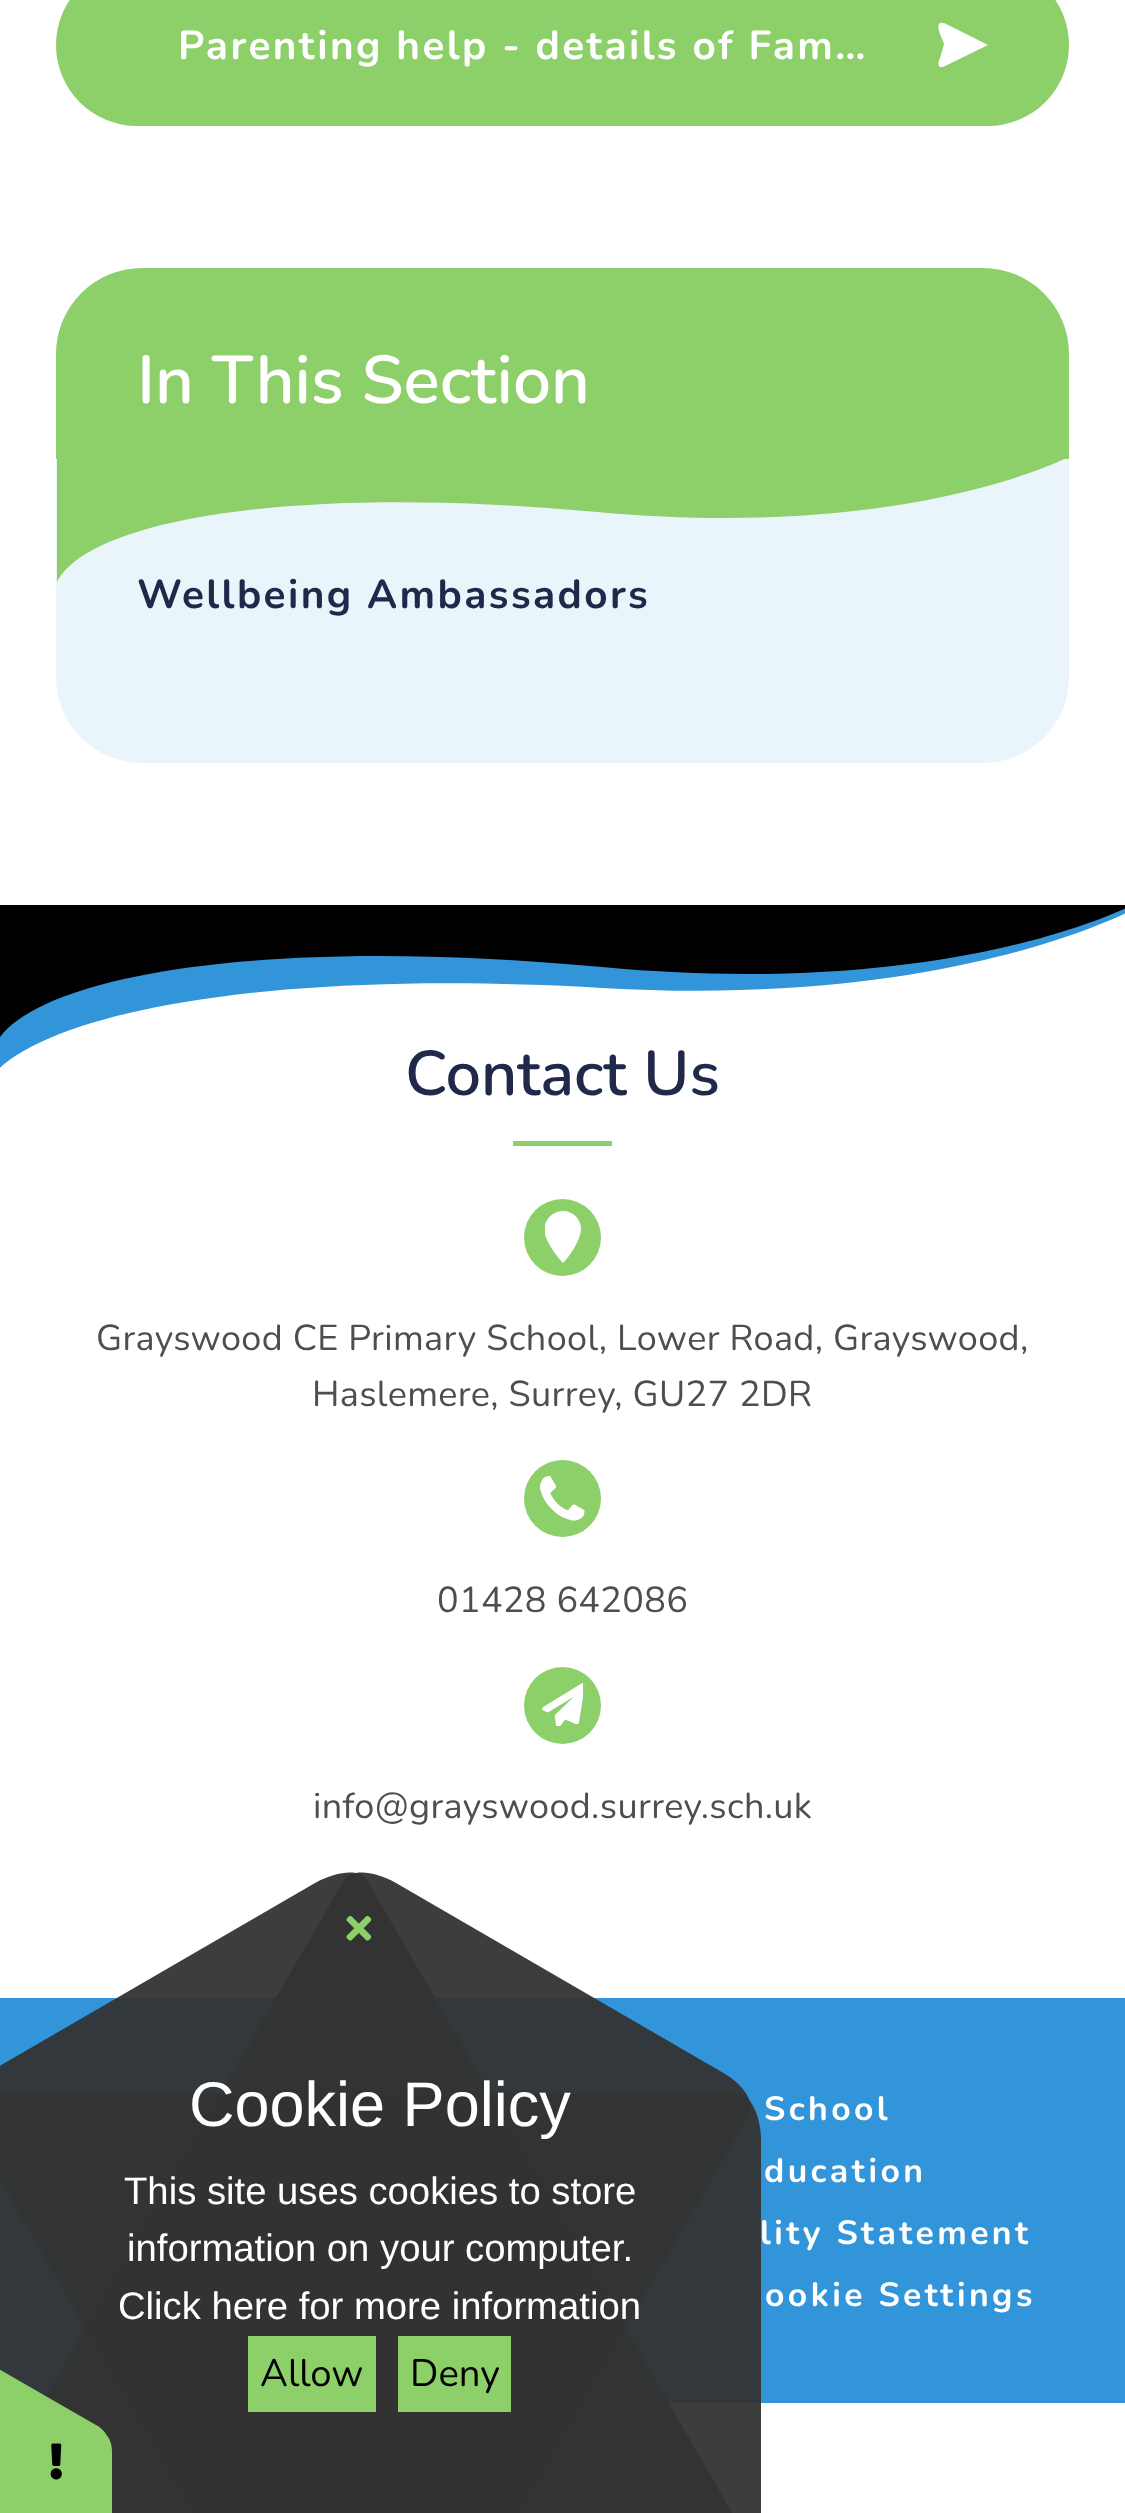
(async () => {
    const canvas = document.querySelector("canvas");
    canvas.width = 1125;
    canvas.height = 2513;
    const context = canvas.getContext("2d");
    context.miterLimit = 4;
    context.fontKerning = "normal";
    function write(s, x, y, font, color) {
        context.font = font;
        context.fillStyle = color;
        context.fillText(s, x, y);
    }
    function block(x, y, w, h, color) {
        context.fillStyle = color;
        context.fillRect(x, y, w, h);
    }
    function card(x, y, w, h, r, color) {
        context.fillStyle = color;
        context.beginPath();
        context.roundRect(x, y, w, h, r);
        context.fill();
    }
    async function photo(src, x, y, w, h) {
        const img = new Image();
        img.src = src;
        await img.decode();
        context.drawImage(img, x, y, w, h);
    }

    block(0, 0, 1125, 2513, "rgb(255, 255, 255)");
    card(56, -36, 1013, 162, 81, "rgb(141, 207, 105)");
    context.fillStyle = "rgb(255, 255, 255)";
    context.beginPath();
    context.moveTo(988, 45);
    context.lineTo(943, 67);
    context.lineTo(940, 67);
    context.bezierCurveTo(937, 65, 939, 60, 940, 58);
    context.lineTo(944, 44);
    context.bezierCurveTo(943, 39, 935, 27, 940, 23);
    context.bezierCurveTo(941, 23, 943, 23, 944, 23);
    context.closePath();
    context.fill();
    context.letterSpacing = "2.4px";
    write("Parenting help - details of Fam…", 178, 59, "bold 40.5px Nunito", "rgb(255, 255, 255)");
    context.fillStyle = "rgb(141, 207, 105)";
    context.beginPath();
    context.roundRect(56, 268, 1013, 191, [86, 86, 0, 0]);
    context.fill();
    context.letterSpacing = "0px";
    write("In This Section", 137, 403, "600 67.5px Nunito", "rgb(255, 255, 255)");
    context.fillStyle = "rgb(234, 244, 251)";
    context.beginPath();
    context.roundRect(56, 459, 1013, 304, [0, 0, 86, 86]);
    context.fill();
    context.fillStyle = "rgb(141, 207, 105)";
    context.beginPath();
    context.moveTo(57, 582);
    context.lineTo(57, 459);
    context.lineTo(1064, 459);
    context.bezierCurveTo(1037, 472, 880, 538, 597, 512);
    context.bezierCurveTo(284, 483, 87, 522, 57, 582);
    context.closePath();
    context.fill();
    context.letterSpacing = "2.4px";
    write("Wellbeing Ambassadors", 137, 608, "bold 40.5px Nunito", "rgb(32, 41, 74)");
    block(0, 1998, 1125, 405, "rgb(51, 149, 217)");
    context.letterSpacing = "0px";
    write("Contact Us", 405, 1095, "600 63px Nunito", "rgb(32, 41, 74)");
    context.fillStyle = "rgb(51, 149, 217)";
    context.beginPath();
    context.moveTo(-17, 1090);
    context.bezierCurveTo(14, 1020, 241, 967, 602, 988);
    context.bezierCurveTo(963, 1009, 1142, 905, 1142, 905);
    context.lineTo(-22, 946);
    context.closePath();
    context.fill();
    context.fillStyle = "rgb(0, 0, 0)";
    context.beginPath();
    context.moveTo(-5, 1045);
    context.bezierCurveTo(28, 979, 250, 934, 602, 967);
    context.bezierCurveTo(953, 1000, 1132, 905, 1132, 905);
    context.lineTo(-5, 905);
    context.closePath();
    context.fill();
    block(513, 1141, 99, 5, "rgb(141, 207, 105)");
    context.beginPath();
    context.arc(562.5, 1237.5, 38.5, 0, Math.PI * 2);
    context.fill();
    context.save();
    context.beginPath();
    context.rect(545, 1211, 36, 52);
    context.clip();
    context.fillStyle = "rgb(255, 255, 255)";
    context.beginPath();
    context.moveTo(563, 1211);
    context.bezierCurveTo(553, 1211, 545, 1219, 544, 1229);
    context.bezierCurveTo(544, 1239, 556, 1256, 563, 1263);
    context.bezierCurveTo(570, 1256, 581, 1239, 581, 1229);
    context.bezierCurveTo(581, 1219, 573, 1211, 563, 1211);
    context.closePath();
    context.fill();
    context.restore();
    context.letterSpacing = "0.35px";
    write("Grayswood CE Primary School, Lower Road, Grayswood,", 96, 1350, "36px Nunito", "rgb(77, 78, 78)");
    write("Haslemere, Surrey, GU27 2DR", 312, 1406, "36px Nunito", "rgb(77, 78, 78)");
    context.fillStyle = "rgb(141, 207, 105)";
    context.beginPath();
    context.arc(562.5, 1498.5, 38.5, 0, Math.PI * 2);
    context.fill();
    await photo("media/1.png", 540, 1476, 45, 45);
    write("01428 642086", 437, 1612, "36px Nunito", "rgb(77, 78, 78)");
    context.fillStyle = "rgb(141, 207, 105)";
    context.beginPath();
    context.arc(562.5, 1705.5, 38.5, 0, Math.PI * 2);
    context.fill();
    await photo("media/2.png", 542, 1683, 41, 43);
    write("info@grayswood.surrey.sch.uk", 313, 1818, "36px Nunito", "rgb(77, 78, 78)");
    context.letterSpacing = "3.4px";
    write("School", 764, 2120, "bold 33.75px Nunito", "rgb(255, 255, 255)");
    write("ducation", 764, 2182, "bold 33.75px Nunito", "rgb(255, 255, 255)");
    write("lity Statement", 760, 2244, "bold 33.75px Nunito", "rgb(255, 255, 255)");
    write("ookie Settings", 765, 2306, "bold 33.75px Nunito", "rgb(255, 255, 255)");
    context.fillStyle = "rgba(51, 51, 51, 0.95)";
    context.beginPath();
    context.moveTo(761, 2141);
    context.lineTo(761, 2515);
    context.bezierCurveTo(761, 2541, 750, 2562, 738, 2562);
    context.lineTo(-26, 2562);
    context.bezierCurveTo(-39, 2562, -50, 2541, -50, 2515);
    context.lineTo(-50, 2141);
    context.bezierCurveTo(-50, 2115, -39, 2094, -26, 2094);
    context.lineTo(738, 2094);
    context.bezierCurveTo(750, 2094, 761, 2115, 761, 2141);
    context.closePath();
    context.fill();
    context.beginPath();
    context.moveTo(720, 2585);
    context.lineTo(396, 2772);
    context.bezierCurveTo(374, 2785, 350, 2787, 344, 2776);
    context.lineTo(-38, 2114);
    context.bezierCurveTo(-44, 2103, -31, 2083, -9, 2071);
    context.lineTo(315, 1883);
    context.bezierCurveTo(338, 1870, 361, 1869, 367, 1880);
    context.lineTo(749, 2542);
    context.bezierCurveTo(756, 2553, 743, 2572, 720, 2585);
    context.closePath();
    context.fill();
    context.beginPath();
    context.moveTo(396, 1883);
    context.lineTo(720, 2071);
    context.bezierCurveTo(743, 2083, 756, 2103, 749, 2114);
    context.lineTo(367, 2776);
    context.bezierCurveTo(361, 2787, 338, 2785, 315, 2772);
    context.lineTo(-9, 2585);
    context.bezierCurveTo(-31, 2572, -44, 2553, -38, 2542);
    context.lineTo(344, 1880);
    context.bezierCurveTo(350, 1869, 374, 1870, 396, 1883);
    context.closePath();
    context.fill();
    await photo("media/3.png", 346, 1915, 26, 26);
    context.letterSpacing = "0px";
    write("Cookie Policy", 189, 2126, "63px Liberation Sans", "rgb(255, 255, 255)");
    write("This site uses cookies to store", 124, 2204, "38.25px Liberation Sans", "rgb(255, 255, 255)");
    write("information on your computer.", 127, 2261, "38.25px Liberation Sans", "rgb(255, 255, 255)");
    write("Click here for more information", 118, 2319, "38.25px Liberation Sans", "rgb(255, 255, 255)");
    block(248, 2336, 128, 76, "rgb(141, 207, 105)");
    write("Allow", 260, 2386, "38.25px Nunito", "rgb(0, 0, 0)");
    block(398, 2336, 113, 76, "rgb(141, 207, 105)");
    write("Deny", 410, 2386, "38.25px Nunito", "rgb(0, 0, 0)");
    context.fillStyle = "rgb(141, 207, 105)";
    context.beginPath();
    context.moveTo(112, 2452);
    context.lineTo(112, 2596);
    context.bezierCurveTo(112, 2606, 108, 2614, 103, 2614);
    context.lineTo(-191, 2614);
    context.bezierCurveTo(-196, 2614, -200, 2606, -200, 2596);
    context.lineTo(-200, 2452);
    context.bezierCurveTo(-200, 2442, -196, 2434, -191, 2434);
    context.lineTo(103, 2434);
    context.bezierCurveTo(108, 2434, 112, 2442, 112, 2452);
    context.closePath();
    context.fill();
    context.beginPath();
    context.moveTo(-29, 2353);
    context.lineTo(96, 2425);
    context.bezierCurveTo(105, 2430, 110, 2438, 107, 2442);
    context.lineTo(-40, 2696);
    context.bezierCurveTo(-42, 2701, -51, 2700, -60, 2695);
    context.lineTo(-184, 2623);
    context.bezierCurveTo(-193, 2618, -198, 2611, -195, 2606);
    context.lineTo(-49, 2352);
    context.bezierCurveTo(-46, 2348, -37, 2348, -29, 2353);
    context.closePath();
    context.fill();
    await photo("media/4.png", 50, 2443, 12, 37);
})();
